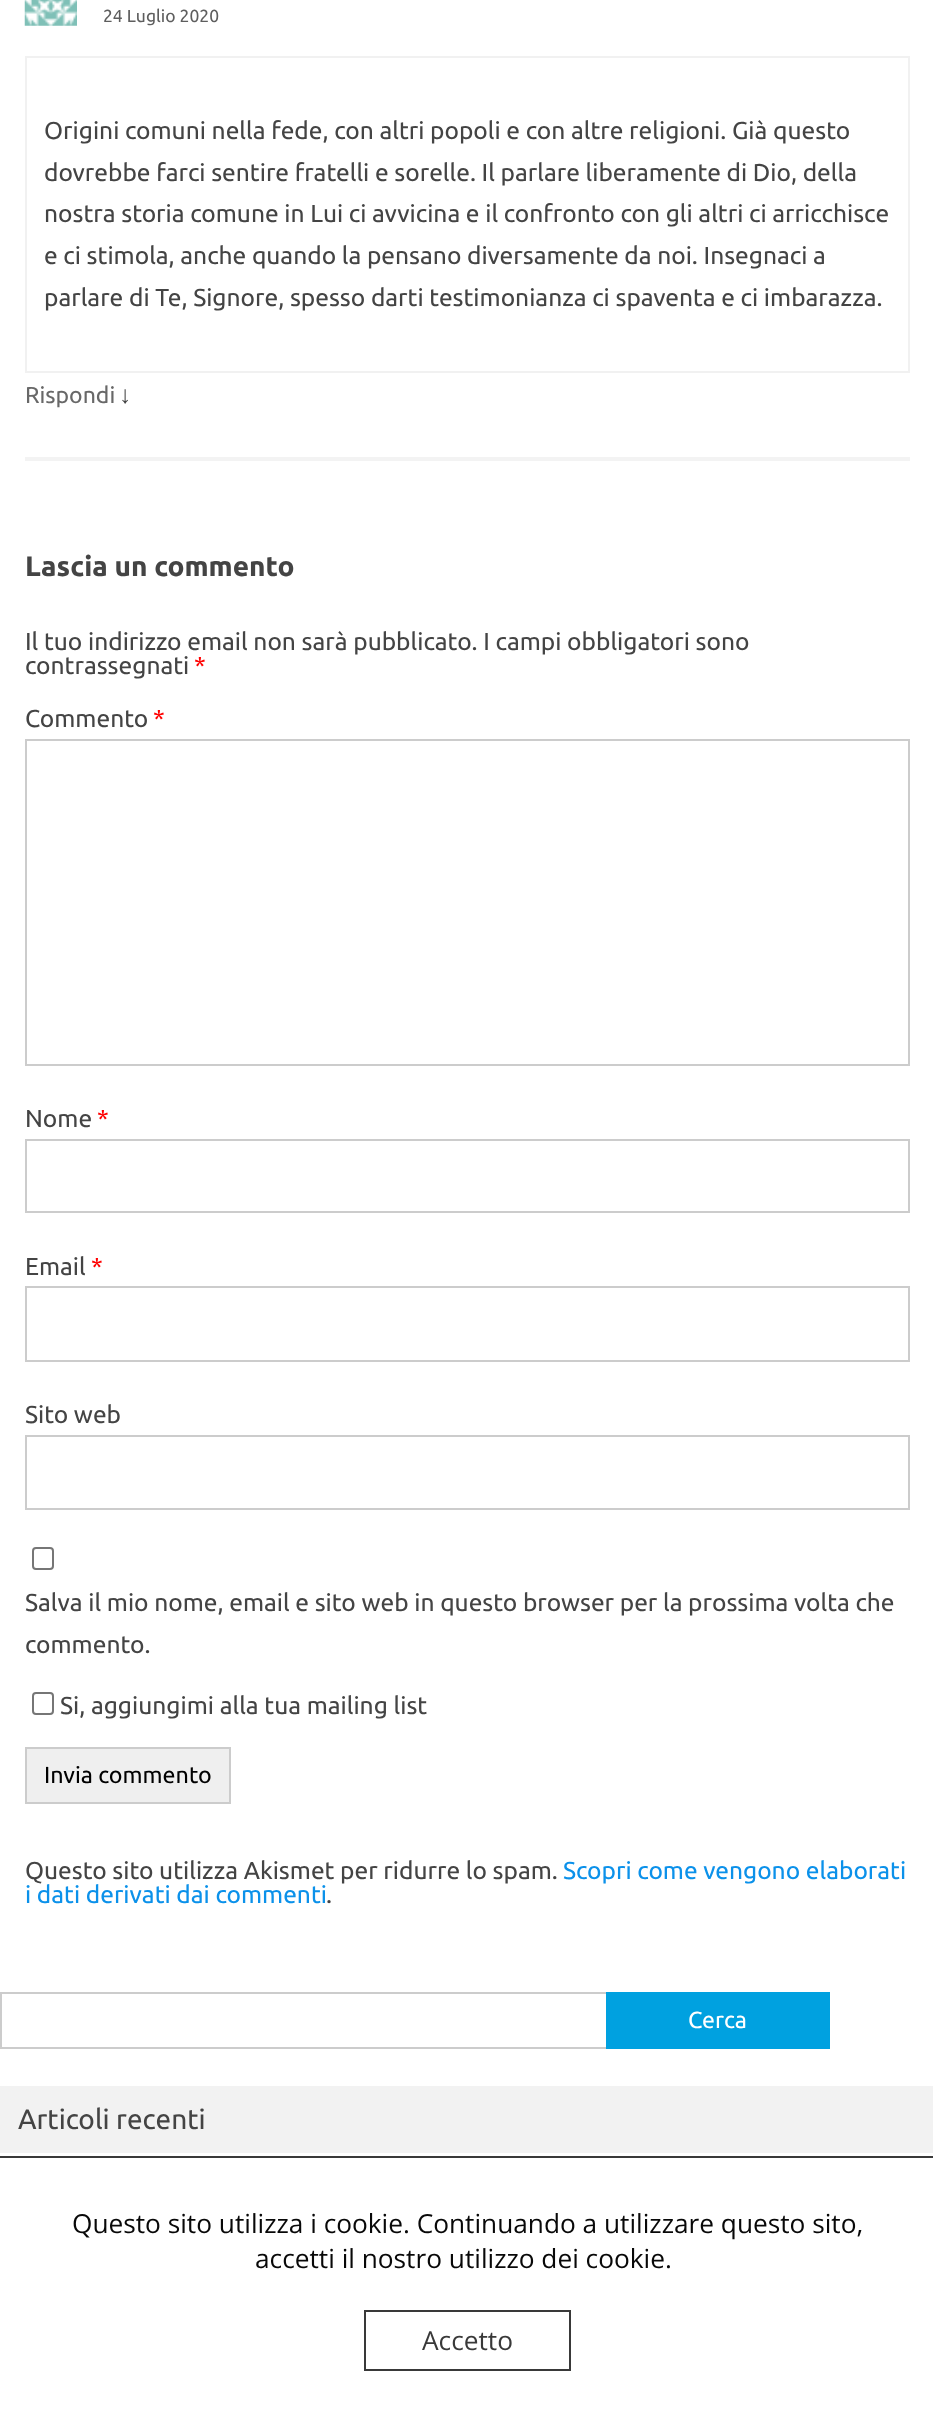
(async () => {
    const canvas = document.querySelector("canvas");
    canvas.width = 933;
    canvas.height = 2430;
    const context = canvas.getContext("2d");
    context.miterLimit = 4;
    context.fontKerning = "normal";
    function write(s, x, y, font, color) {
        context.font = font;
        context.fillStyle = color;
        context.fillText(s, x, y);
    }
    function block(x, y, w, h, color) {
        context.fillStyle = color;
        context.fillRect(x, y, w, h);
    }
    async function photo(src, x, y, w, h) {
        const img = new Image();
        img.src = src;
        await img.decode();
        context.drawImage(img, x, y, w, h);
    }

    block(0, 0, 933, 2430, "rgb(255, 255, 255)");
    block(25, 457, 885, 4, "rgb(243, 243, 243)");
    await photo("media/1.png", 24, 0, 53, 26);
    write("24 Luglio 2020", 103, 22, "17.5px Ubuntu", "rgb(94, 94, 94)");
    context.strokeStyle = "rgb(241, 241, 241)";
    context.lineWidth = 2;
    context.strokeRect(26, 57, 883, 315);
    write("Origini comuni nella fede, con altri popoli e con altre religioni. Già questo", 44, 139, "24.5px Ubuntu", "rgb(68, 68, 68)");
    write("dovrebbe farci sentire fratelli e sorelle. Il parlare liberamente di Dio, della", 44, 181, "24.5px Ubuntu", "rgb(68, 68, 68)");
    write("nostra storia comune in Lui ci avvicina e il confronto con gli altri ci arricchisce", 44, 222, "24.5px Ubuntu", "rgb(68, 68, 68)");
    write("e ci stimola, anche quando la pensano diversamente da noi. Insegnaci a", 44, 264, "24.5px Ubuntu", "rgb(68, 68, 68)");
    write("parlare di Te, Signore, spesso darti testimonianza ci spaventa e ci imbarazza.", 44, 306, "24.5px Ubuntu", "rgb(68, 68, 68)");
    write("Rispondi", 25, 403, "23px Ubuntu", "rgb(104, 104, 104)");
    write("↓", 119, 403, "24.5px Liberation Sans", "rgb(68, 68, 68)");
    write("Lascia un commento", 25, 576, "bold 28px Ubuntu", "rgb(68, 68, 68)");
    write("Il tuo indirizzo email non sarà pubblicato. I campi obbligatori sono", 25, 650, "24.5px Ubuntu", "rgb(68, 68, 68)");
    write("contrassegnati", 25, 674, "24.5px Ubuntu", "rgb(68, 68, 68)");
    write("*", 194, 674, "24.5px Ubuntu", "rgb(255, 0, 0)");
    write("Commento", 25, 727, "24.5px Ubuntu", "rgb(68, 68, 68)");
    write("*", 153, 727, "24.5px Ubuntu", "rgb(255, 0, 0)");
    context.strokeStyle = "rgb(204, 204, 204)";
    context.strokeRect(26, 740, 883, 325);
    write("Nome", 25, 1127, "24.5px Ubuntu", "rgb(68, 68, 68)");
    write("*", 97, 1127, "24.5px Ubuntu", "rgb(255, 0, 0)");
    context.strokeRect(26, 1140, 883, 72);
    write("Email", 25, 1275, "24.5px Ubuntu", "rgb(68, 68, 68)");
    write("*", 91, 1275, "24.5px Ubuntu", "rgb(255, 0, 0)");
    context.strokeRect(26, 1287, 883, 74);
    write("Sito web", 25, 1423, "24.5px Ubuntu", "rgb(68, 68, 68)");
    context.strokeRect(26, 1436, 883, 73);
    context.beginPath();
    context.roundRect(33, 1548, 20, 21, 3);
    context.strokeStyle = "rgb(118, 118, 118)";
    context.stroke();
    write("Salva il mio nome, email e sito web in questo browser per la prossima volta che", 25, 1611, "24.5px Ubuntu", "rgb(68, 68, 68)");
    write("commento.", 25, 1653, "24.5px Ubuntu", "rgb(68, 68, 68)");
    context.beginPath();
    context.roundRect(33, 1693, 20, 21, 3);
    context.stroke();
    write("Si, aggiungimi alla tua mailing list", 60, 1714, "24.5px Ubuntu", "rgb(68, 68, 68)");
    context.fillStyle = "rgb(239, 239, 239)";
    context.beginPath();
    context.rect(26, 1748, 204, 55);
    context.fill();
    context.strokeStyle = "rgb(204, 204, 204)";
    context.stroke();
    write("Invia commento", 44, 1783, "23.25px Ubuntu", "rgb(0, 0, 0)");
    write("Questo sito utilizza Akismet per ridurre lo spam.", 25, 1879, "24.5px Ubuntu", "rgb(68, 68, 68)");
    write("Scopri come vengono elaborati", 563, 1879, "24.5px Ubuntu", "rgb(11, 145, 234)");
    write("i dati derivati dai commenti", 25, 1903, "24.5px Ubuntu", "rgb(11, 145, 234)");
    write(".", 326, 1903, "24.5px Ubuntu", "rgb(68, 68, 68)");
    context.strokeRect(1, 1993, 607, 55);
    block(606, 1992, 224, 57, "rgb(0, 161, 224)");
    write("Cerca", 688, 2028, "23.25px Ubuntu", "rgb(255, 255, 255)");
    block(0, 2086, 933, 67, "rgb(242, 242, 242)");
    write("Articoli recenti", 18, 2129, "28px Ubuntu", "rgb(68, 68, 68)");
    block(0, 2228, 933, 2, "rgb(233, 233, 233)");
    block(0, 2286, 933, 2, "rgb(233, 233, 233)");
    block(0, 2342, 933, 2, "rgb(233, 233, 233)");
    block(0, 2399, 933, 2, "rgb(233, 233, 233)");
    block(0, 2228, 933, 173, "rgba(255, 255, 255, 0.97)");
    block(0, 2156, 933, 2, "rgb(57, 57, 57)");
    write("Questo sito utilizza i cookie. Continuando a utilizzare questo sito,", 72, 2233, "26.25px Open Sans", "rgb(8, 8, 8)");
    write("accetti il nostro utilizzo dei cookie.", 255, 2268, "26.25px Open Sans", "rgb(8, 8, 8)");
    context.strokeStyle = "rgb(57, 57, 57)";
    context.strokeRect(365, 2311, 205, 59);
    write("Accetto", 422, 2350, "26.25px Open Sans", "rgb(57, 57, 57)");
})();
